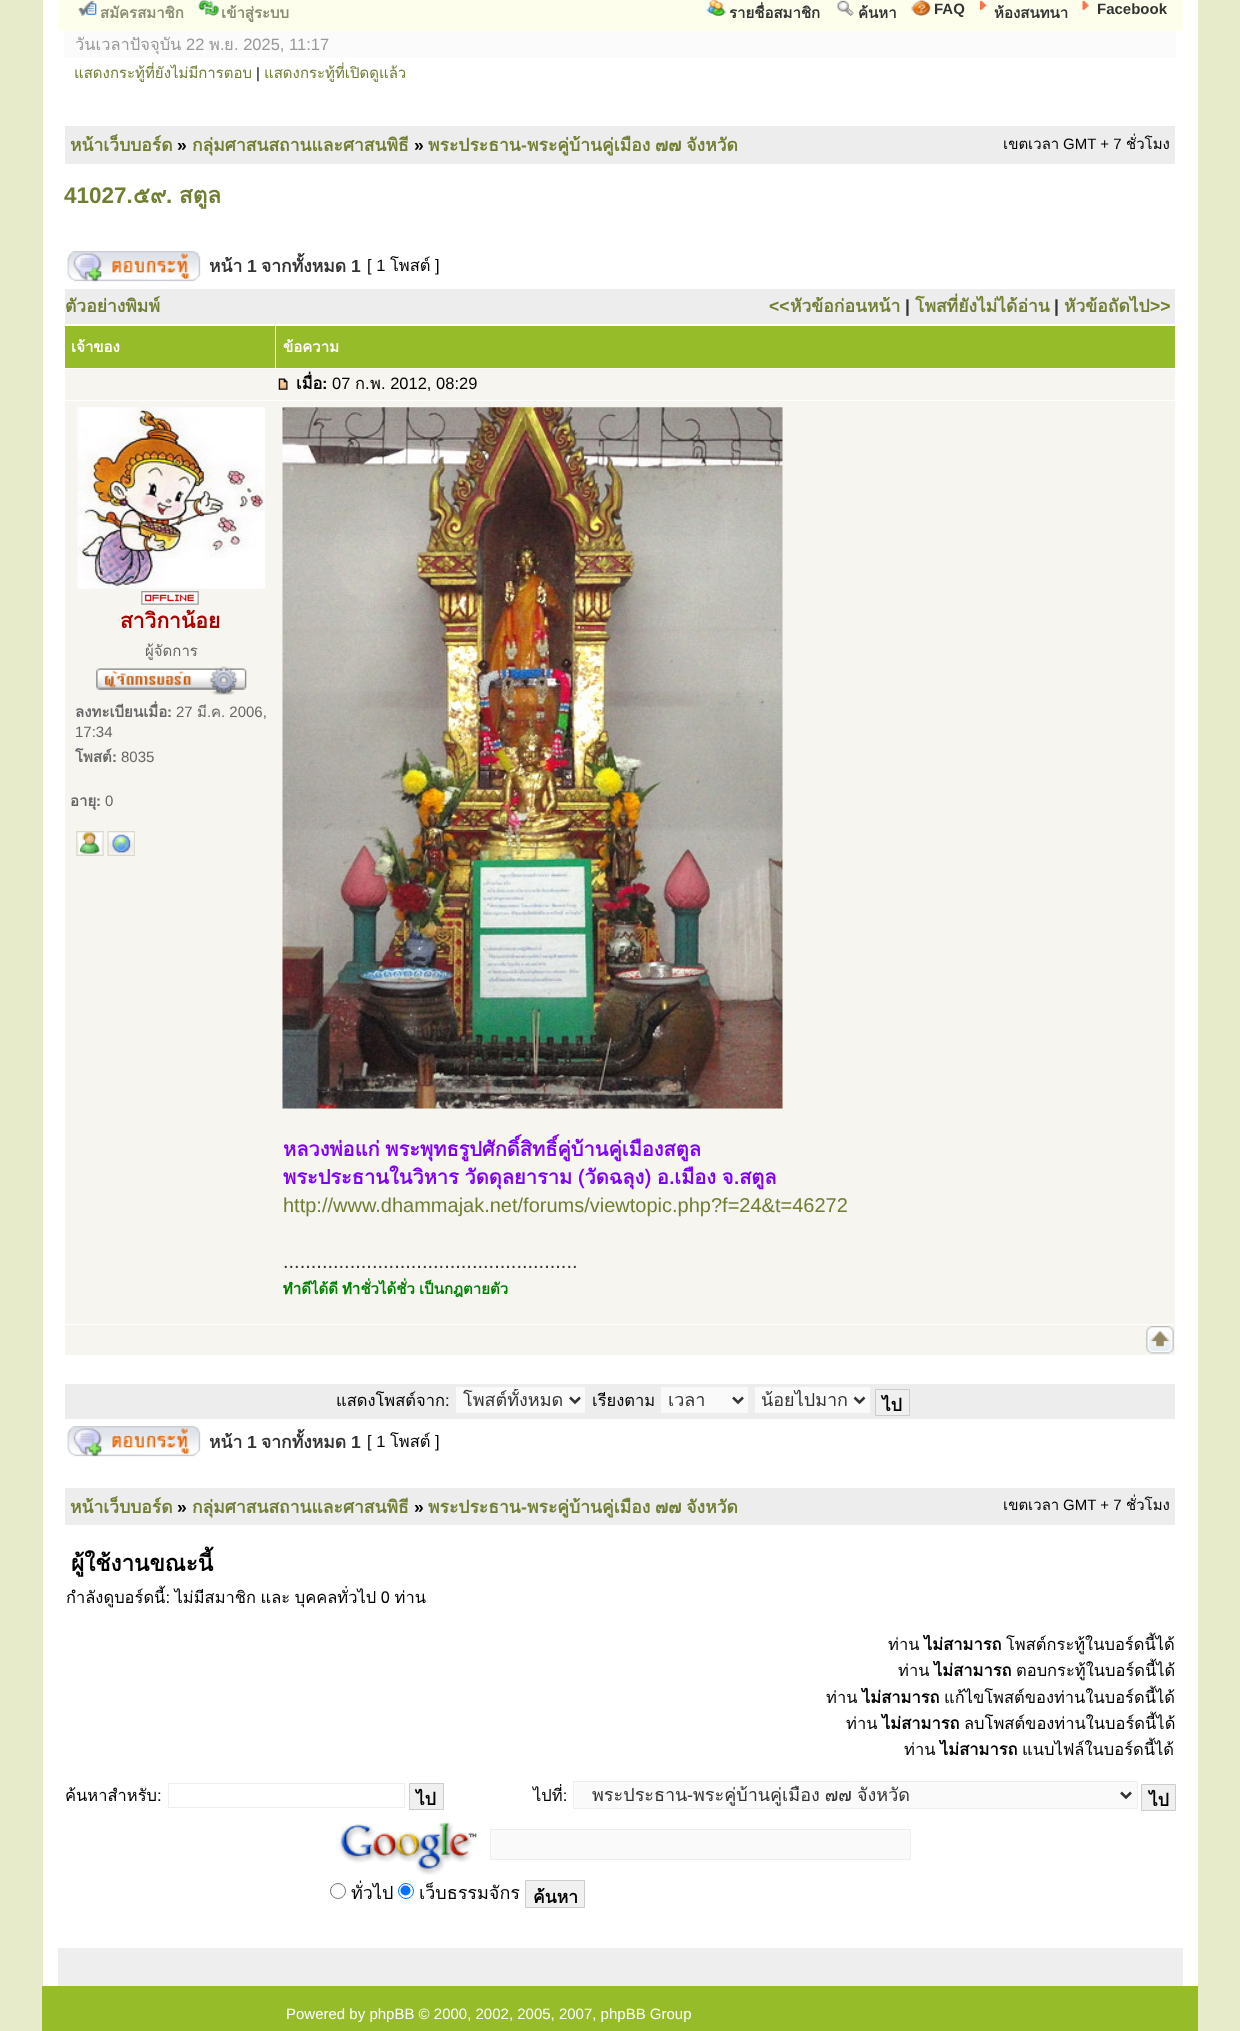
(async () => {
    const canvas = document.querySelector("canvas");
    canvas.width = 1240;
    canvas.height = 2031;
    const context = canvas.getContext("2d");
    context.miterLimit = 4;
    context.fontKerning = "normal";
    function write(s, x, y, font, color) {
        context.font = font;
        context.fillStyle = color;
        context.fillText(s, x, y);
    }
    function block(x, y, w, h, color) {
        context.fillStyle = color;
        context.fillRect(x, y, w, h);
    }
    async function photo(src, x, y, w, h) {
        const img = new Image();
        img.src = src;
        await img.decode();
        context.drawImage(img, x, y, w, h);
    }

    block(0, 0, 1240, 2031, "rgb(231, 235, 202)");
    block(43, 0, 1155, 1986, "rgb(255, 255, 255)");
    block(58, 0, 1125, 31, "rgb(253, 255, 236)");
    await photo("media/1.png", 78, 0, 19, 16);
    write("สมัครสมาชิก", 100, 18, "bold 15px Loma", "rgb(140, 140, 115)");
    await photo("media/2.png", 198, 0, 21, 16);
    write("เข้าสู่ระบบ", 221, 18, "bold 15px Loma", "rgb(140, 140, 115)");
    await photo("media/3.png", 706, 0, 21, 16);
    write("รายชื่อสมาชิก", 729, 18, "bold 15px Loma", "rgb(51, 51, 51)");
    await photo("media/4.png", 836, 0, 18, 16);
    write("ค้นหา", 858, 18, "bold 15px Loma", "rgb(51, 51, 51)");
    await photo("media/5.png", 911, 0, 21, 16);
    write("FAQ", 934, 14, "bold 15px Liberation Sans", "rgb(51, 51, 51)");
    await photo("media/6.png", 980, 0, 7, 10);
    write("ห้องสนทนา", 994, 18, "bold 15px Loma", "rgb(51, 51, 51)");
    await photo("media/7.png", 1082, 0, 7, 10);
    write("Facebook", 1097, 14, "bold 15px Liberation Sans", "rgb(51, 51, 51)");
    block(64, 31, 1112, 27, "rgb(251, 251, 251)");
    write("วันเวลาปัจจุบัน", 75, 50, "16.5px Loma", "rgb(153, 153, 153)");
    write("22", 186, 50, "16.5px Liberation Sans", "rgb(153, 153, 153)");
    write("พ", 209, 50, "16.5px Loma", "rgb(153, 153, 153)");
    write(".", 220, 50, "16.5px Liberation Sans", "rgb(153, 153, 153)");
    write("ย", 224, 50, "16.5px Loma", "rgb(153, 153, 153)");
    write(". 2025, 11:17", 234, 50, "16.5px Liberation Sans", "rgb(153, 153, 153)");
    write("แสดงกระทู้ที่ยังไม่มีการตอบ", 74, 78, "15px Loma", "rgb(112, 126, 51)");
    write("|", 256, 78, "15px Liberation Sans", "rgb(0, 0, 0)");
    write("แสดงกระทู้ที่เปิดดูแล้ว", 264, 78, "15px Loma", "rgb(112, 126, 51)");
    block(65, 126, 1110, 38, "rgb(237, 237, 237)");
    write("หน้าเว็บบอร์ด", 70, 151, "bold 17.5px Loma", "rgb(112, 126, 51)");
    write("»", 177, 151, "bold 17.5px Liberation Sans", "rgb(0, 0, 0)");
    write("กลุ่มศาสนสถานและศาสนพิธี", 192, 151, "bold 17.5px Loma", "rgb(112, 126, 51)");
    write("»", 414, 151, "bold 17.5px Liberation Sans", "rgb(0, 0, 0)");
    write("พระประธาน", 428, 151, "bold 17.5px Loma", "rgb(112, 126, 51)");
    write("-", 521, 151, "bold 17.5px Liberation Sans", "rgb(112, 126, 51)");
    context.wordSpacing = "-1px";
    write("พระคู่บ้านคู่เมือง ๗๗ จังหวัด", 527, 151, "bold 17.5px Loma", "rgb(112, 126, 51)");
    context.wordSpacing = "0px";
    write("เขตเวลา", 1003, 149, "15px Loma", "rgb(0, 0, 0)");
    write("GMT + 7", 1063, 149, "15px Liberation Sans", "rgb(0, 0, 0)");
    write("ชั่วโมง", 1126, 149, "15px Loma", "rgb(0, 0, 0)");
    write("41027.", 64, 203, "bold 22.5px Liberation Sans", "rgb(112, 126, 51)");
    write("๕๙", 133, 203, "bold 22.5px Loma", "rgb(112, 126, 51)");
    write(".", 166, 203, "bold 22.5px Liberation Sans", "rgb(112, 126, 51)");
    write("สตูล", 179, 203, "bold 22.5px Loma", "rgb(112, 126, 51)");
    await photo("media/8.png", 67, 251, 134, 31);
    write("หน้า", 209, 272, "bold 17.5px Loma", "rgb(51, 51, 51)");
    write("1", 247, 272, "bold 17.5px Liberation Sans", "rgb(51, 51, 51)");
    write("จากทั้งหมด", 261, 272, "bold 17.5px Loma", "rgb(51, 51, 51)");
    write("1", 351, 272, "bold 17.5px Liberation Sans", "rgb(51, 51, 51)");
    write("[ 1", 367, 271, "16.5px Liberation Sans", "rgb(0, 0, 0)");
    write("โพสต์", 390, 271, "16.5px Loma", "rgb(0, 0, 0)");
    write("]", 435, 271, "16.5px Liberation Sans", "rgb(0, 0, 0)");
    block(65, 289, 1110, 35, "rgb(237, 237, 237)");
    write("ตัวอย่างพิมพ์", 65, 312, "bold 17.5px Loma", "rgb(112, 126, 51)");
    write("<<", 769, 312, "bold 17.5px Liberation Sans", "rgb(112, 126, 51)");
    write("หัวข้อก่อนหน้า", 790, 312, "bold 17.5px Loma", "rgb(112, 126, 51)");
    write("|", 905, 312, "bold 17.5px Liberation Sans", "rgb(51, 51, 51)");
    write("โพสที่ยังไม่ได้อ่าน", 915, 312, "bold 17.5px Loma", "rgb(112, 126, 51)");
    write("|", 1054, 312, "bold 17.5px Liberation Sans", "rgb(51, 51, 51)");
    write("หัวข้อถัดไป", 1064, 312, "bold 17.5px Loma", "rgb(112, 126, 51)");
    write(">>", 1150, 312, "bold 17.5px Liberation Sans", "rgb(112, 126, 51)");
    block(65, 326, 210, 42, "rgb(150, 188, 41)");
    write("เจ้าของ", 71, 352, "bold 15px Loma", "rgb(255, 255, 255)");
    block(276, 326, 899, 42, "rgb(150, 188, 41)");
    write("ข้อความ", 283, 352, "bold 15px Loma", "rgb(255, 255, 255)");
    block(65, 369, 1110, 31, "rgb(246, 245, 240)");
    await photo("media/9.png", 278, 378, 10, 12);
    write("เมื่อ", 296, 389, "bold 16.5px Loma", "rgb(0, 0, 0)");
    write(":", 322, 389, "bold 16.5px Liberation Sans", "rgb(0, 0, 0)");
    write("07", 332, 389, "16.5px Liberation Sans", "rgb(0, 0, 0)");
    write("ก", 355, 389, "16.5px Loma", "rgb(0, 0, 0)");
    write(".", 365, 389, "16.5px Liberation Sans", "rgb(0, 0, 0)");
    write("พ", 370, 389, "16.5px Loma", "rgb(0, 0, 0)");
    write(". 2012, 08:29", 381, 389, "16.5px Liberation Sans", "rgb(0, 0, 0)");
    block(65, 401, 1110, 923, "rgb(246, 245, 240)");
    await photo("media/10.png", 77, 407, 188, 182);
    await photo("media/11.png", 141, 591, 58, 14);
    write("สาวิกาน้อย", 120, 628, "bold 21px Loma", "rgb(170, 0, 0)");
    write("ผู้จัดการ", 145, 656, "15px Loma", "rgb(102, 102, 102)");
    await photo("media/12.png", 96, 666, 151, 29);
    write("ลงทะเบียนเมื่อ", 75, 717, "bold 15px Loma", "rgb(102, 102, 102)");
    write(":", 167, 717, "bold 15px Liberation Sans", "rgb(102, 102, 102)");
    write("27", 176, 717, "15px Liberation Sans", "rgb(102, 102, 102)");
    write("มี", 197, 717, "15px Loma", "rgb(102, 102, 102)");
    write(".", 207, 717, "15px Liberation Sans", "rgb(102, 102, 102)");
    write("ค", 211, 717, "15px Loma", "rgb(102, 102, 102)");
    write(". 2006,", 221, 717, "15px Liberation Sans", "rgb(102, 102, 102)");
    write("17:34", 75, 737, "15px Liberation Sans", "rgb(102, 102, 102)");
    write("โพสต์", 75, 762, "bold 15px Loma", "rgb(102, 102, 102)");
    write(":", 112, 762, "bold 15px Liberation Sans", "rgb(102, 102, 102)");
    write("8035", 121, 762, "15px Liberation Sans", "rgb(102, 102, 102)");
    write("อายุ", 70, 806, "bold 15px Loma", "rgb(102, 102, 102)");
    write(":", 96, 806, "bold 15px Liberation Sans", "rgb(102, 102, 102)");
    write("0", 105, 806, "15px Liberation Sans", "rgb(102, 102, 102)");
    await photo("media/13.png", 76, 831, 28, 25);
    await photo("media/14.png", 107, 831, 28, 25);
    await photo("media/15.png", 282, 407, 501, 702);
    context.wordSpacing = "-1px";
    write("หลวงพ่อแก่ พระพุทธรูปศักดิ์สิทธิ์คู่บ้านคู่เมืองสตูล", 283, 1156, "bold 20px Loma", "rgb(128, 0, 255)");
    write("พระประธานในวิหาร วัดดุลยาราม (วัดฉลุง) อ.เมือง จ.สตูล", 283, 1184, "bold 20px Loma", "rgb(128, 0, 255)");
    context.wordSpacing = "0px";
    write("http://www.dhammajak.net/forums/viewtopic.php?f=24&t=46272", 283, 1212, "20px Liberation Sans", "rgb(112, 126, 51)");
    write(".....................................................", 283, 1268, "20px Liberation Sans", "rgb(51, 51, 51)");
    context.wordSpacing = "-1px";
    write("ทำดีได้ดี ทำชั่วได้ชั่ว เป็นกฎตายตัว", 283, 1294, "bold 15px Loma", "rgb(0, 128, 0)");
    block(65, 1325, 1110, 30, "rgb(246, 245, 240)");
    await photo("media/16.png", 1146, 1326, 28, 28);
    block(65, 1384, 1110, 35, "rgb(237, 237, 237)");
    context.wordSpacing = "0px";
    write("แสดงโพสต์จาก:", 336, 1406, "16.5px Loma", "rgb(0, 0, 0)");
    block(456, 1387, 129, 26, "rgb(250, 250, 250)");
    context.beginPath();
    context.moveTo(570, 1397.5);
    context.lineTo(575, 1402.5);
    context.lineTo(580, 1397.5);
    context.strokeStyle = "rgb(51, 51, 51)";
    context.lineWidth = 2.5;
    context.stroke();
    context.save();
    context.beginPath();
    context.rect(463, 1389, 101, 22);
    context.clip();
    write("โพสต์ทั้งหมด", 463, 1406, "18px Loma", "rgb(51, 51, 51)");
    context.restore();
    write("เรียงตาม", 592, 1406, "16.5px Loma", "rgb(0, 0, 0)");
    block(661, 1387, 87, 26, "rgb(250, 250, 250)");
    context.beginPath();
    context.moveTo(733, 1397.5);
    context.lineTo(738, 1402.5);
    context.lineTo(743, 1397.5);
    context.stroke();
    write("เวลา", 668, 1406, "18px Loma", "rgb(51, 51, 51)");
    block(755, 1387, 115, 26, "rgb(250, 250, 250)");
    context.beginPath();
    context.moveTo(854.5, 1397.5);
    context.lineTo(859.5, 1402.5);
    context.lineTo(864.5, 1397.5);
    context.stroke();
    context.save();
    context.beginPath();
    context.rect(761, 1389, 88, 22);
    context.clip();
    write("น้อยไปมาก", 761, 1406, "18px Loma", "rgb(51, 51, 51)");
    context.restore();
    context.fillStyle = "rgb(240, 240, 240)";
    context.beginPath();
    context.rect(875.5, 1389.5, 34, 26);
    context.fill();
    context.strokeStyle = "rgb(204, 204, 204)";
    context.lineWidth = 1;
    context.stroke();
    write("ไป", 882, 1411, "bold 17.5px Loma", "rgb(0, 0, 0)");
    await photo("media/8.png", 67, 1426, 134, 31);
    write("หน้า", 209, 1448, "bold 17.5px Loma", "rgb(51, 51, 51)");
    write("1", 247, 1448, "bold 17.5px Liberation Sans", "rgb(51, 51, 51)");
    write("จากทั้งหมด", 261, 1448, "bold 17.5px Loma", "rgb(51, 51, 51)");
    write("1", 351, 1448, "bold 17.5px Liberation Sans", "rgb(51, 51, 51)");
    write("[ 1", 367, 1447, "16.5px Liberation Sans", "rgb(0, 0, 0)");
    write("โพสต์", 390, 1447, "16.5px Loma", "rgb(0, 0, 0)");
    write("]", 435, 1447, "16.5px Liberation Sans", "rgb(0, 0, 0)");
    block(65, 1488, 1110, 37, "rgb(237, 237, 237)");
    write("หน้าเว็บบอร์ด", 70, 1513, "bold 17.5px Loma", "rgb(112, 126, 51)");
    write("»", 177, 1513, "bold 17.5px Liberation Sans", "rgb(0, 0, 0)");
    write("กลุ่มศาสนสถานและศาสนพิธี", 192, 1513, "bold 17.5px Loma", "rgb(112, 126, 51)");
    write("»", 414, 1513, "bold 17.5px Liberation Sans", "rgb(0, 0, 0)");
    write("พระประธาน", 428, 1513, "bold 17.5px Loma", "rgb(112, 126, 51)");
    write("-", 521, 1513, "bold 17.5px Liberation Sans", "rgb(112, 126, 51)");
    context.wordSpacing = "-1px";
    write("พระคู่บ้านคู่เมือง ๗๗ จังหวัด", 527, 1513, "bold 17.5px Loma", "rgb(112, 126, 51)");
    context.wordSpacing = "0px";
    write("เขตเวลา", 1003, 1510, "15px Loma", "rgb(0, 0, 0)");
    write("GMT + 7", 1063, 1510, "15px Liberation Sans", "rgb(0, 0, 0)");
    write("ชั่วโมง", 1126, 1510, "15px Loma", "rgb(0, 0, 0)");
    write("ผู้ใช้งานขณะนี้", 71, 1571, "bold 22.5px Loma", "rgb(0, 0, 0)");
    context.wordSpacing = "-1px";
    write("กำลังดูบอร์ดนี้: ไม่มีสมาชิก และ บุคคลทั่วไป 0 ท่าน", 66, 1603, "16.5px Loma", "rgb(0, 0, 0)");
    context.wordSpacing = "0px";
    write("ท่าน", 888, 1650, "16.5px Loma", "rgb(0, 0, 0)");
    write("ไม่สามารถ", 924, 1650, "bold 16.5px Loma", "rgb(0, 0, 0)");
    write("โพสต์กระทู้ในบอร์ดนี้ได้", 1006, 1650, "16.5px Loma", "rgb(0, 0, 0)");
    write("ท่าน", 898, 1676, "16.5px Loma", "rgb(0, 0, 0)");
    write("ไม่สามารถ", 934, 1676, "bold 16.5px Loma", "rgb(0, 0, 0)");
    write("ตอบกระทู้ในบอร์ดนี้ได้", 1016, 1676, "16.5px Loma", "rgb(0, 0, 0)");
    write("ท่าน", 826, 1703, "16.5px Loma", "rgb(0, 0, 0)");
    write("ไม่สามารถ", 862, 1703, "bold 16.5px Loma", "rgb(0, 0, 0)");
    write("แก้ไขโพสต์ของท่านในบอร์ดนี้ได้", 944, 1703, "16.5px Loma", "rgb(0, 0, 0)");
    write("ท่าน", 846, 1729, "16.5px Loma", "rgb(0, 0, 0)");
    write("ไม่สามารถ", 882, 1729, "bold 16.5px Loma", "rgb(0, 0, 0)");
    write("ลบโพสต์ของท่านในบอร์ดนี้ได้", 964, 1729, "16.5px Loma", "rgb(0, 0, 0)");
    write("ท่าน", 904, 1755, "16.5px Loma", "rgb(0, 0, 0)");
    write("ไม่สามารถ", 940, 1755, "bold 16.5px Loma", "rgb(0, 0, 0)");
    write("แนบไฟล์ในบอร์ดนี้ได้", 1022, 1755, "16.5px Loma", "rgb(0, 0, 0)");
    write("ค้นหาสำหรับ:", 65, 1801, "16.5px Loma", "rgb(0, 0, 0)");
    context.strokeStyle = "rgb(238, 238, 238)";
    context.strokeRect(168.5, 1783.5, 236, 24);
    context.fillStyle = "rgb(240, 240, 240)";
    context.beginPath();
    context.rect(409.5, 1783.5, 34, 26);
    context.fill();
    context.strokeStyle = "rgb(204, 204, 204)";
    context.stroke();
    write("ไป", 416, 1805, "bold 17.5px Loma", "rgb(0, 0, 0)");
    write("ไปที่:", 533, 1801, "16.5px Loma", "rgb(0, 0, 0)");
    context.fillStyle = "rgb(250, 250, 250)";
    context.beginPath();
    context.rect(573.5, 1781.5, 564, 27);
    context.fill();
    context.strokeStyle = "rgb(238, 238, 238)";
    context.stroke();
    context.beginPath();
    context.moveTo(1121, 1792.5);
    context.lineTo(1126, 1797.5);
    context.lineTo(1131, 1792.5);
    context.strokeStyle = "rgb(51, 51, 51)";
    context.lineWidth = 2.5;
    context.stroke();
    write("พระประธาน", 592, 1801, "18px Loma", "rgb(51, 51, 51)");
    write("-", 687, 1801, "18px Liberation Sans", "rgb(51, 51, 51)");
    context.wordSpacing = "-1px";
    write("พระคู่บ้านคู่เมือง ๗๗ จังหวัด", 693, 1801, "18px Loma", "rgb(51, 51, 51)");
    context.fillStyle = "rgb(240, 240, 240)";
    context.beginPath();
    context.rect(1141.5, 1784.5, 34, 26);
    context.fill();
    context.strokeStyle = "rgb(204, 204, 204)";
    context.lineWidth = 1;
    context.stroke();
    context.wordSpacing = "0px";
    write("ไป", 1149, 1806, "bold 17.5px Loma", "rgb(0, 0, 0)");
    await photo("media/17.png", 338, 1821, 139, 54);
    context.fillStyle = "rgb(250, 250, 250)";
    context.beginPath();
    context.rect(490.5, 1829.5, 420, 30);
    context.fill();
    context.strokeStyle = "rgb(238, 238, 238)";
    context.stroke();
    context.beginPath();
    context.arc(338, 1891, 7.5, 0, Math.PI * 2);
    context.strokeStyle = "rgb(118, 118, 118)";
    context.stroke();
    write("ทั่วไป", 351, 1899, "18px Loma", "rgb(0, 0, 0)");
    context.beginPath();
    context.arc(406, 1891, 7.5, 0, Math.PI * 2);
    context.strokeStyle = "rgb(0, 117, 255)";
    context.stroke();
    context.fillStyle = "rgb(0, 117, 255)";
    context.beginPath();
    context.arc(405.5, 1890.5, 5, 0, Math.PI * 2);
    context.fill();
    write("เว็บธรรมจักร", 419, 1899, "18px Loma", "rgb(0, 0, 0)");
    context.fillStyle = "rgb(240, 240, 240)";
    context.beginPath();
    context.rect(525.5, 1880.5, 59, 27);
    context.fill();
    context.strokeStyle = "rgb(204, 204, 204)";
    context.stroke();
    write("ค้นหา", 533, 1903, "bold 17.5px Loma", "rgb(0, 0, 0)");
    block(58, 1948, 1125, 38, "rgb(238, 238, 238)");
    block(42, 1986, 1156, 45, "rgb(150, 188, 41)");
    write("Powered by phpBB © 2000, 2002, 2005, 2007, phpBB Group", 286, 2019, "15px Liberation Sans", "rgb(255, 255, 255)");
})();
